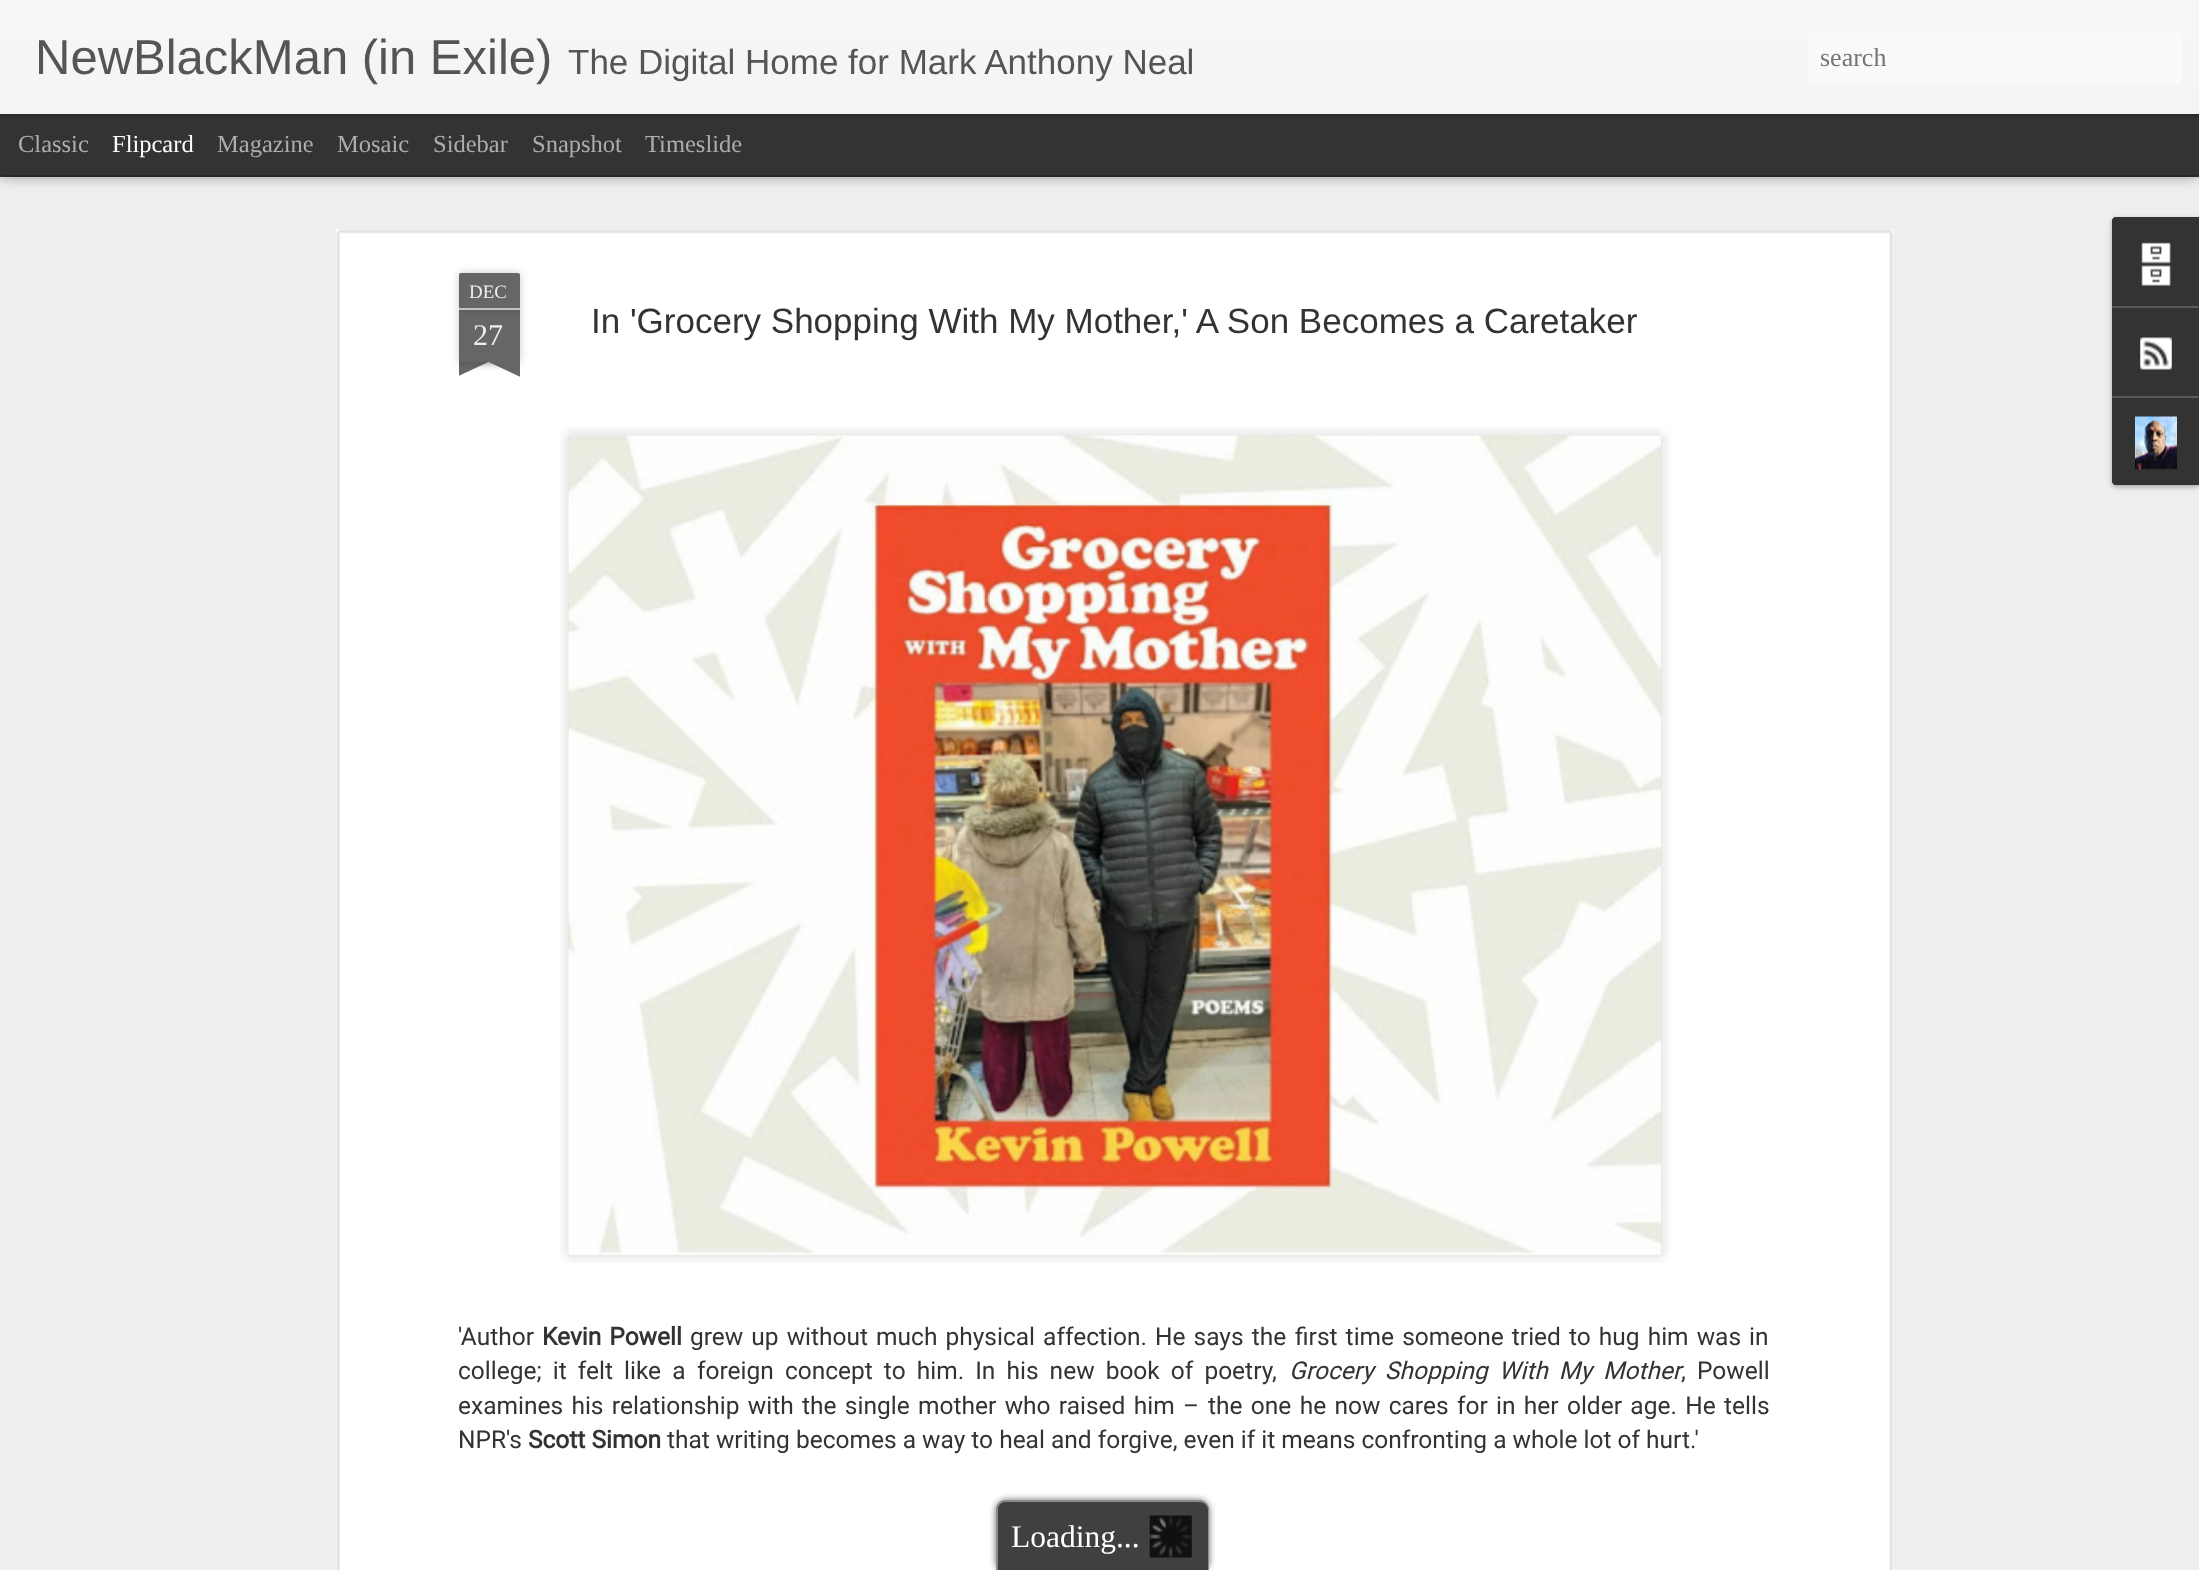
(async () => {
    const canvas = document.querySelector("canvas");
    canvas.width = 2199;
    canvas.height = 1570;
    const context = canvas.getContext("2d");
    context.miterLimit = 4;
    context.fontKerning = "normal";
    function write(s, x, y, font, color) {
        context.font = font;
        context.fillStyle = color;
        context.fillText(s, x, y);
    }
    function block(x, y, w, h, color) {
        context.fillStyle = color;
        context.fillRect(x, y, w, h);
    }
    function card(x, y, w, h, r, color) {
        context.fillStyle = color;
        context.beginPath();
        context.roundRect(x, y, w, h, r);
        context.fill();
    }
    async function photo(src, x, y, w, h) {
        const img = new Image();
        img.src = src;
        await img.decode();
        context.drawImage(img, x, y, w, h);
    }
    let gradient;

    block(0, 0, 2199, 1570, "rgb(51, 51, 51)");
    block(0, 177, 2199, 1393, "rgb(238, 238, 238)");
    context.fillStyle = "rgba(0, 0, 0, 0.5)";
    context.filter = "blur(7px)";
    context.beginPath();
    context.rect(0, 114, 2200, 61);
    context.fill();
    context.filter = "none";
    block(0, 114, 2199, 61, "rgb(51, 51, 51)");
    context.fillStyle = "rgba(0, 0, 0, 0.3)";
    context.filter = "blur(4.5px)";
    context.beginPath();
    context.rect(0, 0, 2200, 114);
    context.fill();
    context.filter = "none";
    gradient = context.createLinearGradient(0, 0, 0, 114);
    gradient.addColorStop(0, "rgb(247, 247, 247)");
    gradient.addColorStop(1, "rgb(244, 244, 244)");
    context.fillStyle = gradient;
    context.fillRect(0, 0, 2199, 114);
    write("NewBlackMan (in Exile)", 35, 74, "49px Liberation Sans", "rgb(85, 85, 85)");
    write("The Digital Home for Mark Anthony Neal", 568, 74, "35px Liberation Sans", "rgb(85, 85, 85)");
    card(1808, 32, 374, 52, 5, "rgb(250, 250, 250)");
    write("search", 1820, 66, "26px Liberation Serif", "rgb(117, 117, 117)");
    write("Classic", 18, 152, "24.5px Liberation Serif", "rgb(173, 173, 173)");
    write("Flipcard", 112, 152, "24.5px Liberation Serif", "rgb(255, 255, 255)");
    write("Magazine", 217, 152, "24.5px Liberation Serif", "rgb(173, 173, 173)");
    write("Mosaic", 337, 152, "24.5px Liberation Serif", "rgb(173, 173, 173)");
    write("Sidebar", 433, 152, "24.5px Liberation Serif", "rgb(173, 173, 173)");
    write("Snapshot", 532, 152, "24.5px Liberation Serif", "rgb(173, 173, 173)");
    write("Timeslide", 645, 152, "24.5px Liberation Serif", "rgb(173, 173, 173)");
    block(336, 229, 1558, 1341, "rgb(255, 255, 255)");
    await photo("media/1.png", 336, 229, 1558, 1341);
    context.fillStyle = "rgba(0, 0, 0, 0.2)";
    context.filter = "blur(4.5px)";
    context.beginPath();
    context.rect(459, 310, 61, 52);
    context.fill();
    context.filter = "none";
    block(459, 310, 61, 52, "rgb(102, 102, 102)");
    context.fillStyle = "rgba(0, 0, 0, 0.2)";
    context.filter = "blur(4.5px)";
    context.beginPath();
    context.roundRect(459, 273, 61, 37, 2);
    context.fill();
    context.filter = "none";
    context.fillStyle = "rgb(102, 102, 102)";
    context.beginPath();
    context.roundRect(459, 273, 61, 37, [2, 2, 0, 0]);
    context.fill();
    block(459, 308, 61, 2, "rgb(194, 194, 194)");
    write("DEC", 469, 298, "19px Liberation Serif", "rgb(238, 238, 238)");
    write("27", 473, 345, "30px Liberation Serif", "rgb(238, 238, 238)");
    context.save();
    context.beginPath();
    context.rect(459, 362, 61, 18);
    context.clip();
    context.fillStyle = "rgba(0, 0, 0, 0.2)";
    context.filter = "blur(4.5px)";
    context.beginPath();
    context.rect(443, 345, 87, 17);
    context.fill();
    context.filter = "none";
    context.restore();
    context.save();
    context.beginPath();
    context.rect(459, 362, 61, 18);
    context.clip();
    context.fillStyle = "rgb(102, 102, 102)";
    context.beginPath();
    context.moveTo(442, 364);
    context.lineTo(522, 327);
    context.lineTo(529, 343);
    context.lineTo(450, 380);
    context.closePath();
    context.fill();
    context.restore();
    context.save();
    context.beginPath();
    context.rect(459, 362, 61, 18);
    context.clip();
    context.fillStyle = "rgba(0, 0, 0, 0.2)";
    context.filter = "blur(4.5px)";
    context.beginPath();
    context.rect(448, 345, 88, 17);
    context.fill();
    context.filter = "none";
    context.restore();
    context.save();
    context.beginPath();
    context.rect(459, 362, 61, 18);
    context.clip();
    context.fillStyle = "rgb(102, 102, 102)";
    context.beginPath();
    context.moveTo(455, 327);
    context.lineTo(534, 364);
    context.lineTo(527, 380);
    context.lineTo(448, 343);
    context.closePath();
    context.fill();
    context.restore();
    write("In 'Grocery Shopping With My Mother,' A Son Becomes a Caretaker", 591, 333, "35px Liberation Sans", "rgb(51, 51, 51)");
    await photo("media/2.png", 560, 427, 1110, 836);
    await photo("media/3.png", 568, 435, 1094, 821);
    write("'Author", 458, 1345, "24.5px Roboto", "rgb(51, 51, 51)");
    context.wordSpacing = "2px";
    write("Kevin Powell", 542, 1345, "bold 24.5px Roboto", "rgb(51, 51, 51)");
    write("grew up without much physical affection. He says the", 690, 1345, "24.5px Roboto", "rgb(51, 51, 51)");
    write("first time someone tried to hug him was in", 1295, 1345, "24.5px Roboto", "rgb(51, 51, 51)");
    context.wordSpacing = "5px";
    write("college; it felt like a", 458, 1379, "24.5px Roboto", "rgb(51, 51, 51)");
    write("foreign concept to him. In his new book of poetry,", 697, 1379, "24.5px Roboto", "rgb(51, 51, 51)");
    write("Grocery Shopping With My Mother", 1289, 1379, "italic 24.5px Roboto", "rgb(51, 51, 51)");
    context.wordSpacing = "0px";
    write("Powell", 1697, 1379, "24.5px Roboto", "rgb(51, 51, 51)");
    write(",", 1681, 1379, "24.5px Roboto", "rgb(51, 51, 51)");
    context.wordSpacing = "2.25px";
    write("examines his relationship with the single mother who raised him –", 458, 1414, "24.5px Roboto", "rgb(51, 51, 51)");
    write("the one he now cares for in her older age. He tells", 1208, 1414, "24.5px Roboto", "rgb(51, 51, 51)");
    context.wordSpacing = "0px";
    write("NPR's", 458, 1448, "24.5px Roboto", "rgb(51, 51, 51)");
    write("Scott Simon", 528, 1448, "bold 24.5px Roboto", "rgb(51, 51, 51)");
    write("that writing becomes a way to heal and forgive, even if it means confronting a whole lot of hurt.'", 667, 1448, "24.5px Roboto", "rgb(51, 51, 51)");
    context.fillStyle = "rgba(0, 0, 0, 0.3)";
    context.filter = "blur(2.5px)";
    context.beginPath();
    context.roundRect(2112, 219, 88, 268, 4);
    context.fill();
    context.filter = "none";
    context.fillStyle = "rgb(51, 51, 51)";
    context.beginPath();
    context.moveTo(2116, 217);
    context.lineTo(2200, 217);
    context.lineTo(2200, 485);
    context.lineTo(2116, 485);
    context.bezierCurveTo(2114, 485, 2112, 483, 2112, 481);
    context.lineTo(2112, 221);
    context.bezierCurveTo(2112, 219, 2114, 217, 2116, 217);
    context.closePath();
    context.fill();
    context.beginPath();
    context.moveTo(2116, 217);
    context.lineTo(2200, 217);
    context.lineTo(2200, 306);
    context.lineTo(2112, 306);
    context.lineTo(2112, 221);
    context.bezierCurveTo(2112, 219, 2114, 217, 2116, 217);
    context.closePath();
    context.fill();
    await photo("media/4.png", 2141, 242, 30, 44);
    block(2112, 306, 87, 2, "rgb(88, 88, 88)");
    await photo("media/5.png", 2140, 337, 32, 33);
    context.fillStyle = "rgb(51, 51, 51)";
    context.beginPath();
    context.moveTo(2112, 396);
    context.lineTo(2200, 396);
    context.lineTo(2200, 485);
    context.lineTo(2116, 485);
    context.bezierCurveTo(2114, 485, 2112, 483, 2112, 481);
    context.closePath();
    context.fill();
    block(2112, 396, 87, 2, "rgb(88, 88, 88)");
    await photo("media/6.png", 2135, 416, 42, 54);
    context.fillStyle = "rgb(102, 102, 102)";
    context.filter = "blur(3.5px)";
    context.beginPath();
    context.roundRect(996, 1500, 213, 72, 11);
    context.fill();
    context.filter = "none";
    context.fillStyle = "rgb(64, 64, 64)";
    context.beginPath();
    context.moveTo(1007, 1500);
    context.lineTo(1198, 1500);
    context.bezierCurveTo(1204, 1500, 1209, 1505, 1209, 1511);
    context.lineTo(1209, 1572);
    context.lineTo(996, 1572);
    context.lineTo(996, 1511);
    context.bezierCurveTo(996, 1505, 1001, 1500, 1007, 1500);
    context.closePath();
    context.fill();
    context.fillStyle = "rgb(140, 140, 140)";
    context.beginPath();
    context.moveTo(1006, 1500);
    context.lineTo(1199, 1500);
    context.bezierCurveTo(1205, 1500, 1209, 1504, 1209, 1510);
    context.lineTo(1209, 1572);
    context.lineTo(996, 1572);
    context.lineTo(996, 1510);
    context.bezierCurveTo(996, 1504, 1000, 1500, 1006, 1500);
    context.closePath();
    context.moveTo(1006, 1502);
    context.lineTo(1199, 1502);
    context.bezierCurveTo(1204, 1502, 1208, 1505, 1208, 1510);
    context.lineTo(1208, 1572);
    context.lineTo(998, 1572);
    context.lineTo(998, 1510);
    context.bezierCurveTo(998, 1505, 1001, 1502, 1006, 1502);
    context.closePath();
    context.fill("evenodd");
    await photo("media/7.png", 1149, 1515, 43, 43);
    write("Loading...", 1011, 1547, "31.5px Liberation Serif", "rgb(255, 255, 255)");
})();
